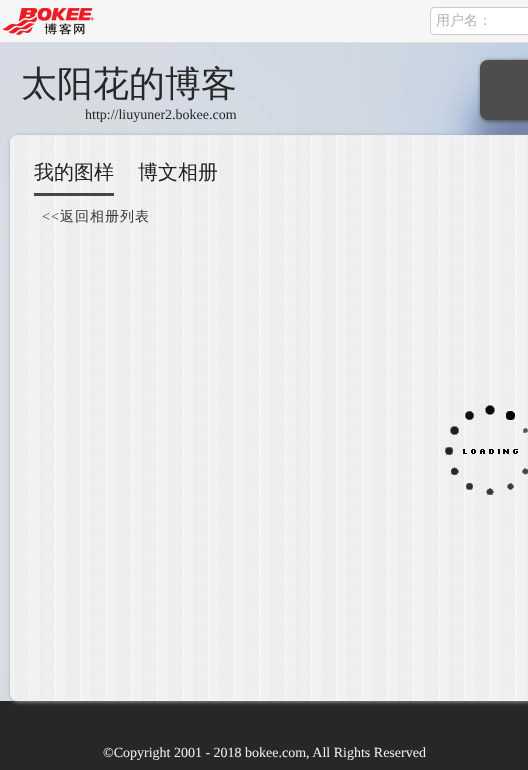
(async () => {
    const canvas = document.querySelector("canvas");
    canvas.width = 528;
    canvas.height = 770;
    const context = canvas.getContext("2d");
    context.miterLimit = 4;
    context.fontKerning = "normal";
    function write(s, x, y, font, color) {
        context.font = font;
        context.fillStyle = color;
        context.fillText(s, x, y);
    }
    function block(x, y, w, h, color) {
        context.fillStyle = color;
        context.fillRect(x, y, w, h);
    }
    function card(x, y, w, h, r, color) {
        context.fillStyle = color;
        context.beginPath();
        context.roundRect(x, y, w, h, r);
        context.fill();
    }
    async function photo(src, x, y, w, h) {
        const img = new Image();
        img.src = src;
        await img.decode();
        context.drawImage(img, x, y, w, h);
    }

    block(0, 0, 528, 770, "rgb(255, 255, 255)");
    await photo("media/1.png", 0, 43, 528, 658);
    block(0, 0, 528, 42, "rgb(246, 246, 246)");
    block(0, 42, 528, 1, "rgb(225, 225, 225)");
    await photo("media/2.png", 0, 5, 96, 32);
    context.fillStyle = "rgb(255, 255, 255)";
    context.beginPath();
    context.roundRect(430.5, 7.5, 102, 27, 3.5);
    context.fill();
    context.strokeStyle = "rgb(204, 204, 204)";
    context.stroke();
    write("用户名：", 436, 25, "500 14px WenQuanYi Zen Hei", "rgb(179, 179, 179)");
    write("太阳花的博客", 21, 96, "500 36px WenQuanYi Zen Hei", "rgb(39, 39, 39)");
    write("http://liuyuner2.bokee.com", 85, 119, "14px Liberation Serif", "rgb(39, 39, 39)");
    context.fillStyle = "rgb(70, 70, 70)";
    context.filter = "blur(2px)";
    context.beginPath();
    context.roundRect(481, 61, 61, 60, 8);
    context.fill();
    context.filter = "none";
    card(480, 60, 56, 60, 8, "rgb(77, 77, 77)");
    block(0, 701, 528, 69, "rgb(39, 39, 39)");
    context.fillStyle = "rgb(153, 153, 153)";
    context.filter = "blur(2px)";
    context.beginPath();
    context.roundRect(11, 136, 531, 566, 8);
    context.fill();
    context.filter = "none";
    card(10, 135, 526, 566, 8, "rgb(255, 255, 255)");
    await photo("media/3.png", 10, 135, 518, 566);
    block(34, 193, 80, 3, "rgb(69, 69, 69)");
    write("我的图样", 34, 179, "500 20px WenQuanYi Zen Hei", "rgb(33, 33, 33)");
    write("博文相册", 138, 179, "500 20px WenQuanYi Zen Hei", "rgb(33, 33, 33)");
    context.letterSpacing = "1px";
    write("<<", 42, 221, "14px Liberation Serif", "rgb(54, 54, 54)");
    write("返回相册列表", 60, 221, "500 14px WenQuanYi Zen Hei", "rgb(54, 54, 54)");
    await photo("media/4.png", 445, 405, 83, 90);
    context.letterSpacing = "0px";
    write("©Copyright 2001 - 2018 bokee.com, All Rights Reserved", 103, 757, "14px Liberation Serif", "rgb(242, 242, 242)");
})();
